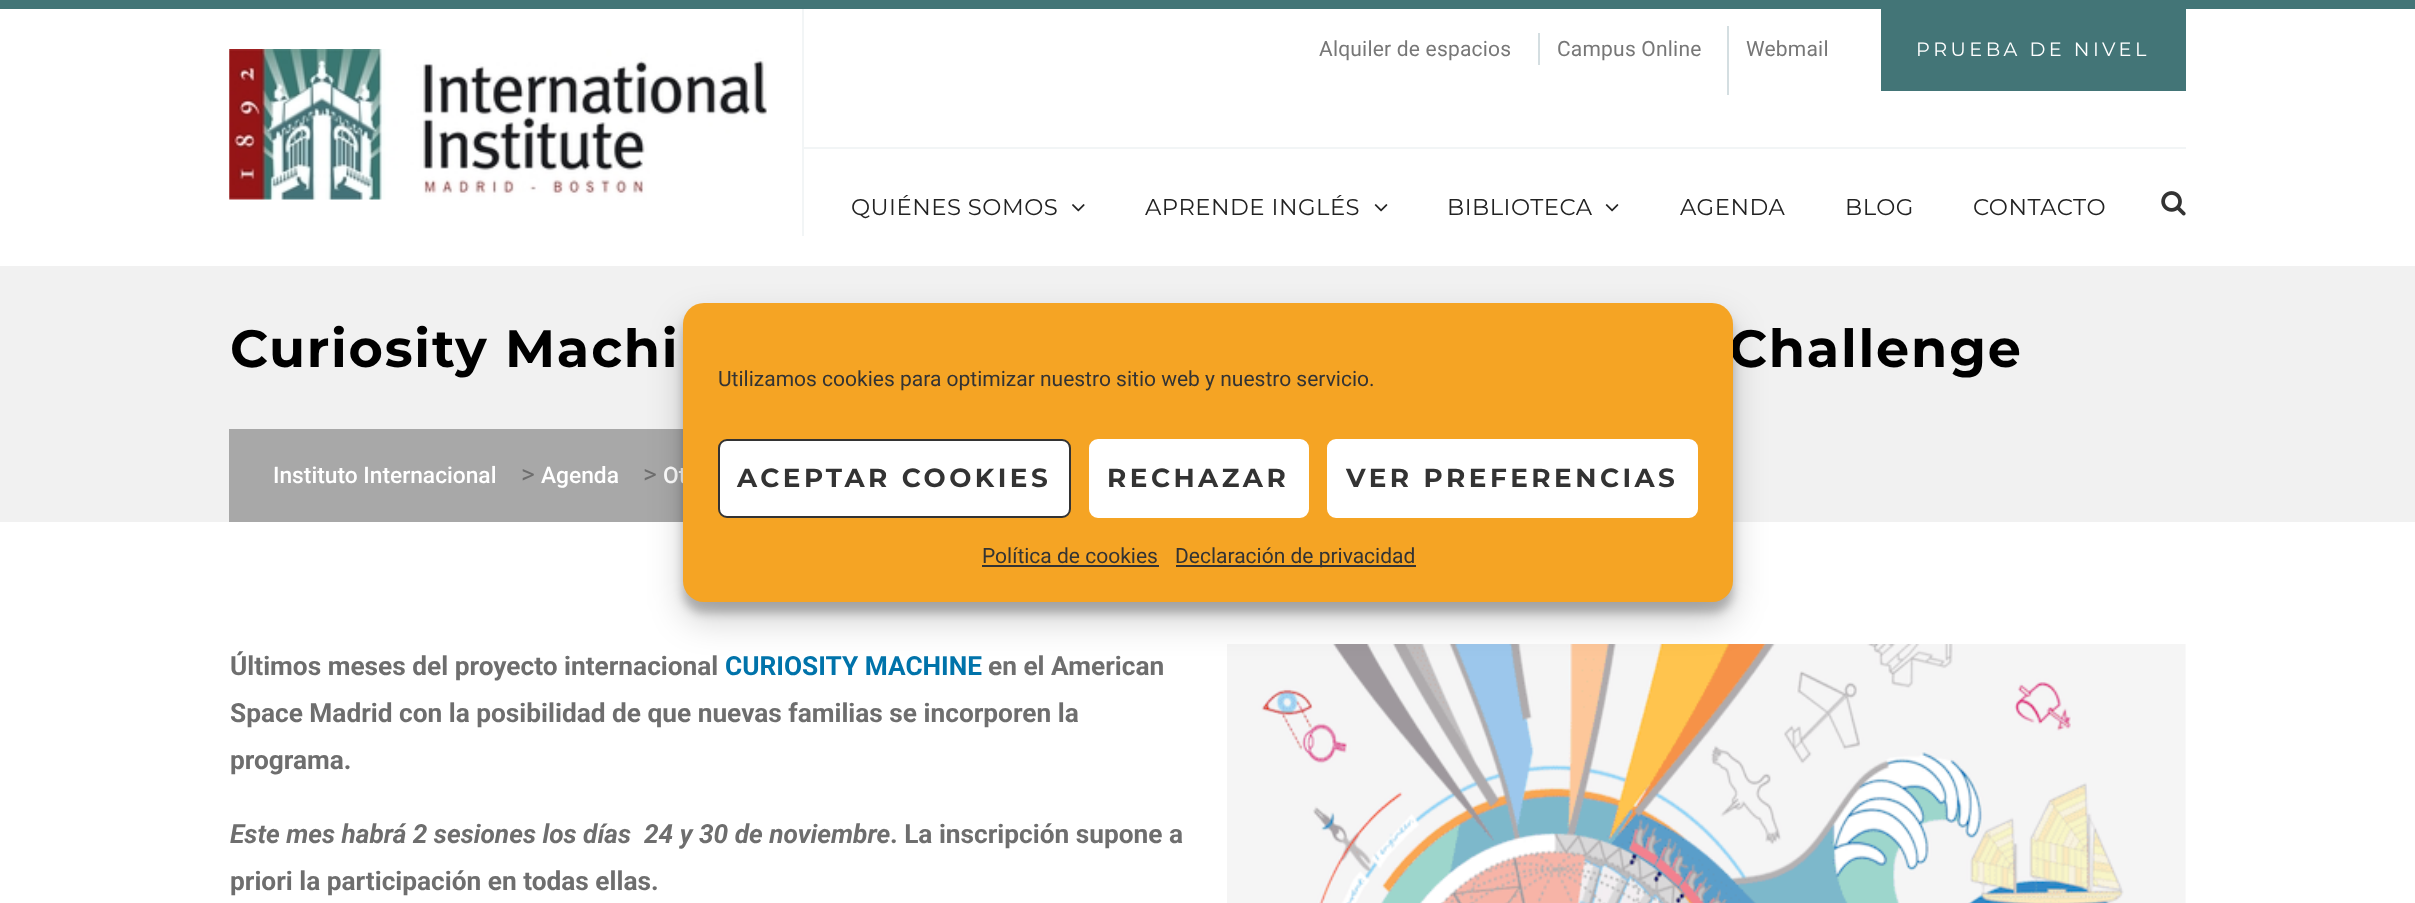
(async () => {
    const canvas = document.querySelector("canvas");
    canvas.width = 2415;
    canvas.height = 903;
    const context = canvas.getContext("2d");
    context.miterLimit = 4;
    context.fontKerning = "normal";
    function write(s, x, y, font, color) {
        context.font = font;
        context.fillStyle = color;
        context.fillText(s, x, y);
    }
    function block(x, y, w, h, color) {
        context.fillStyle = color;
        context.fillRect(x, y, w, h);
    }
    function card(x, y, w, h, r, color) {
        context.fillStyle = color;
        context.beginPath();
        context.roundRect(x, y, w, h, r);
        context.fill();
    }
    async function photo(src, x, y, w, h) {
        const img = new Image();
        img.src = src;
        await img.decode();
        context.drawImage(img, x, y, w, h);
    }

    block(0, 0, 2415, 903, "rgb(255, 255, 255)");
    block(0, 0, 2415, 9, "rgb(67, 117, 119)");
    block(802, 9, 2, 227, "rgb(242, 245, 246)");
    await photo("media/1.png", 229, 49, 538, 151);
    block(803, 147, 1383, 2, "rgb(242, 245, 246)");
    block(1538, 33, 2, 32, "rgb(212, 222, 225)");
    context.letterSpacing = "0.2px";
    write("Alquiler de espacios", 1319, 56, "21px Roboto", "rgb(119, 119, 119)");
    block(1727, 26, 2, 69, "rgb(212, 222, 225)");
    write("Campus Online", 1557, 56, "21px Roboto", "rgb(119, 119, 119)");
    write("Webmail", 1746, 56, "21px Roboto", "rgb(119, 119, 119)");
    block(1881, 9, 305, 82, "rgb(67, 117, 119)");
    context.letterSpacing = "3.5px";
    write("PRUEBA DE NIVEL", 1916, 56, "19.25px Montserrat", "rgb(255, 255, 255)");
    context.letterSpacing = "0.5px";
    write("QUIÉNES SOMOS", 851, 215, "22.75px Montserrat", "rgb(34, 34, 34)");
    await photo("media/2.png", 1072, 204, 13, 8);
    write("APRENDE INGLÉS", 1145, 215, "22.75px Montserrat", "rgb(34, 34, 34)");
    await photo("media/3.png", 1374, 204, 14, 8);
    write("BIBLIOTECA", 1447, 215, "22.75px Montserrat", "rgb(34, 34, 34)");
    await photo("media/3.png", 1605, 204, 14, 8);
    write("AGENDA", 1680, 215, "22.75px Montserrat", "rgb(34, 34, 34)");
    write("BLOG", 1845, 215, "22.75px Montserrat", "rgb(34, 34, 34)");
    write("CONTACTO", 1973, 215, "22.75px Montserrat", "rgb(34, 34, 34)");
    await photo("media/4.png", 2161, 191, 25, 25);
    block(0, 266, 2415, 256, "rgb(241, 241, 241)");
    context.letterSpacing = "1.75px";
    write("Curiosity Machi", 230, 367, "bold 52.5px Montserrat", "rgb(0, 0, 0)");
    write("Challenge", 1729, 367, "bold 52.5px Montserrat", "rgb(0, 0, 0)");
    block(229, 429, 454, 93, "rgb(168, 168, 168)");
    context.letterSpacing = "0px";
    write("Instituto Internacional", 273, 483, "500 22.75px Roboto", "rgb(255, 255, 255)");
    write(">", 521, 483, "26.25px Roboto", "rgb(110, 110, 110)");
    write("Agenda", 541, 483, "500 22.75px Roboto", "rgb(255, 255, 255)");
    write(">", 643, 483, "26.25px Roboto", "rgb(110, 110, 110)");
    write("Ot", 663, 483, "500 22.75px Roboto", "rgb(255, 255, 255)");
    write("Últimos meses del proyecto internacional", 230, 675, "bold 26.25px Roboto", "rgb(110, 110, 110)");
    write("CURIOSITY MACHINE", 725, 675, "bold 26.25px Roboto", "rgb(0, 115, 170)");
    write("en el American", 988, 675, "bold 26.25px Roboto", "rgb(110, 110, 110)");
    write("Space Madrid con la posibilidad de que nuevas familias se incorporen la", 230, 722, "bold 26.25px Roboto", "rgb(110, 110, 110)");
    write("programa.", 230, 769, "bold 26.25px Roboto", "rgb(110, 110, 110)");
    write("Este mes habrá 2 sesiones los días  24 y 30 de noviembre", 230, 843, "italic bold 26.25px Roboto", "rgb(110, 110, 110)");
    write(". La inscripción supone a", 890, 843, "bold 26.25px Roboto", "rgb(110, 110, 110)");
    write("priori la participación en todas ellas.", 230, 890, "bold 26.25px Roboto", "rgb(110, 110, 110)");
    await photo("media/5.png", 1227, 644, 959, 259);
    context.fillStyle = "rgba(0, 0, 0, 0.23)";
    context.filter = "blur(5px)";
    context.beginPath();
    context.roundRect(683, 313, 1050, 300, 21);
    context.fill();
    context.filter = "none";
    context.fillStyle = "rgba(0, 0, 0, 0.19)";
    context.filter = "blur(17.5px)";
    context.beginPath();
    context.roundRect(683, 320, 1050, 300, 21);
    context.fill();
    context.filter = "none";
    card(683, 303, 1050, 299, 21, "rgb(245, 164, 36)");
    write("Utilizamos cookies para optimizar nuestro sitio web y nuestro servicio.", 718, 386, "21px Roboto", "rgb(51, 51, 51)");
    context.fillStyle = "rgb(255, 255, 255)";
    context.beginPath();
    context.roundRect(719, 440, 351, 77, 8);
    context.fill();
    context.strokeStyle = "rgb(51, 51, 51)";
    context.lineWidth = 2;
    context.stroke();
    context.letterSpacing = "3.5px";
    write("ACEPTAR COOKIES", 737, 487, "bold 26.25px Montserrat", "rgb(51, 51, 51)");
    context.fillStyle = "rgb(255, 255, 255)";
    context.beginPath();
    context.roundRect(1090, 440, 218, 77, 8);
    context.fill();
    context.strokeStyle = "rgb(255, 255, 255)";
    context.stroke();
    write("RECHAZAR", 1107, 487, "bold 26.25px Montserrat", "rgb(51, 51, 51)");
    context.fillStyle = "rgb(255, 255, 255)";
    context.beginPath();
    context.roundRect(1328, 440, 369, 77, 8);
    context.fill();
    context.stroke();
    write("VER PREFERENCIAS", 1346, 487, "bold 26.25px Montserrat", "rgb(51, 51, 51)");
    context.letterSpacing = "0px";
    write("Política de cookies", 982, 563, "21px Roboto", "rgb(51, 51, 51)");
    block(982, 565, 177, 2, "rgb(51, 51, 51)");
    block(1176, 565, 240, 2, "rgb(51, 51, 51)");
    write("Declaración de privacidad", 1175, 563, "21px Roboto", "rgb(51, 51, 51)");
})();
